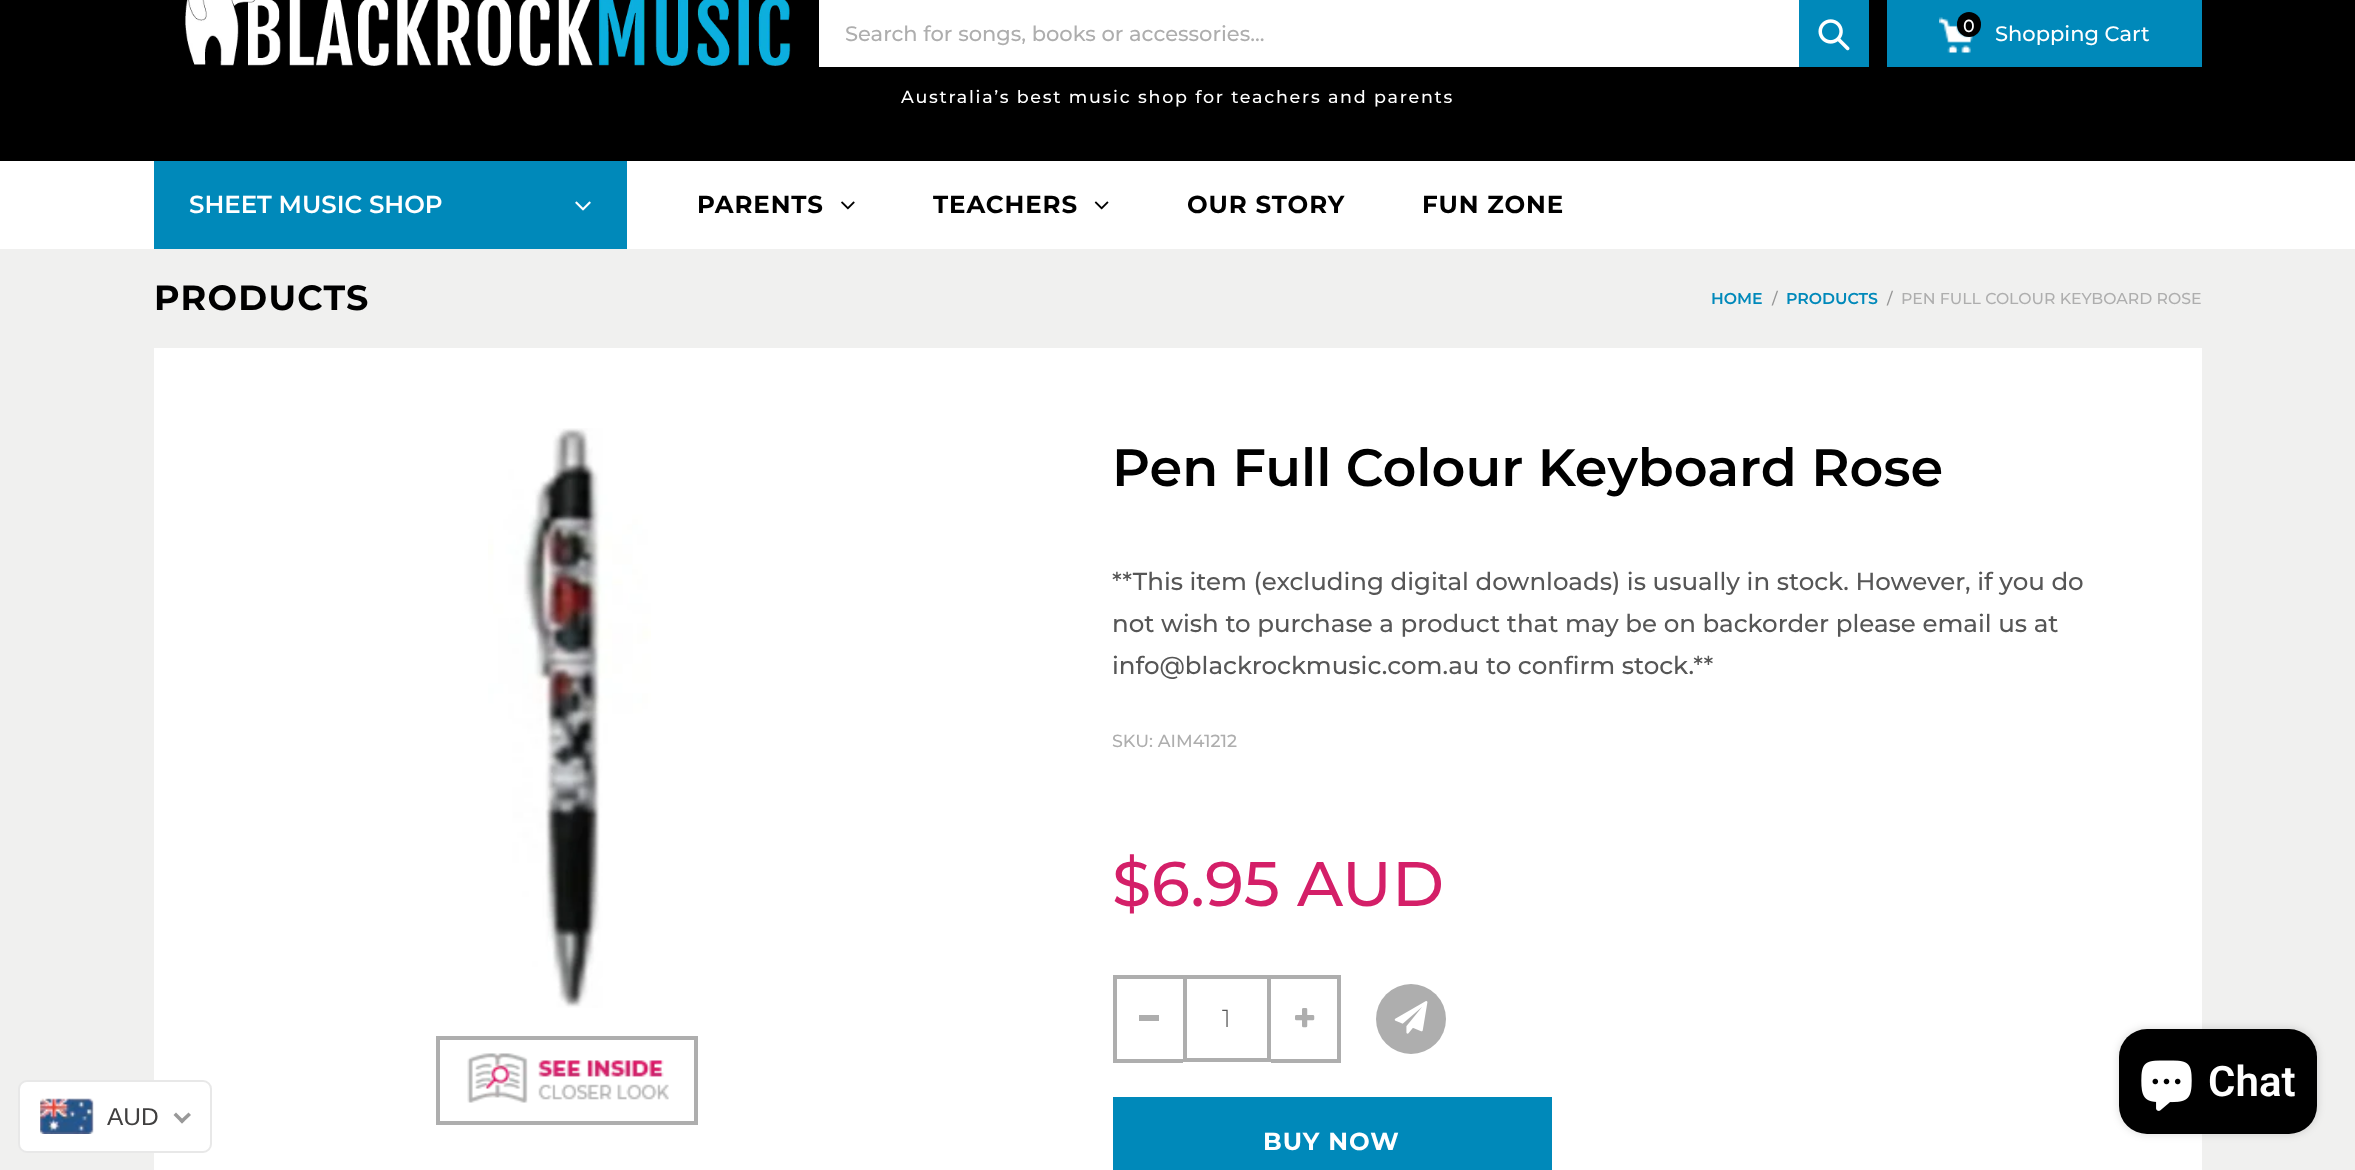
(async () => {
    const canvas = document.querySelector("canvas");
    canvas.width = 2355;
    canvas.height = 1170;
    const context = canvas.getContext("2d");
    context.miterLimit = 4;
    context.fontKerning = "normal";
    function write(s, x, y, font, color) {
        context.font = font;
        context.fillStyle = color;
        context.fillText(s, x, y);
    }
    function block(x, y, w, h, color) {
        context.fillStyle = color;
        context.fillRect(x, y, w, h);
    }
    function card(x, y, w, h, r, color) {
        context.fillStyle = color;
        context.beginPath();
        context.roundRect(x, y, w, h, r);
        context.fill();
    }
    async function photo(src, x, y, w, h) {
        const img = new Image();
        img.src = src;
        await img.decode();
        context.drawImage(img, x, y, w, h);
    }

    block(0, 0, 2355, 1170, "rgb(240, 240, 239)");
    block(0, 0, 2355, 161, "rgb(0, 0, 0)");
    await photo("media/1.png", 185, 0, 606, 66);
    block(819, 0, 980, 67, "rgb(255, 255, 255)");
    write("Search for songs, books or accessories...", 845, 41, "500 21px Montserrat", "rgb(174, 174, 174)");
    block(1799, 0, 70, 67, "rgb(0, 137, 186)");
    await photo("media/2.png", 1818, 19, 32, 32);
    block(1887, 0, 315, 67, "rgb(0, 137, 186)");
    await photo("media/3.png", 1939, 17, 34, 36);
    card(1957, 12, 24, 25, 12, "rgb(0, 0, 0)");
    write("0", 1963, 32, "500 17.5px Montserrat", "rgb(255, 255, 255)");
    write("Shopping Cart", 1995, 41, "500 21px Montserrat", "rgb(255, 255, 255)");
    context.letterSpacing = "1.75px";
    write("Australia’s best music shop for teachers and parents", 901, 103, "500 17.5px Montserrat", "rgb(255, 255, 255)");
    block(0, 161, 2355, 88, "rgb(255, 255, 255)");
    block(154, 161, 473, 88, "rgb(0, 137, 186)");
    context.letterSpacing = "0px";
    write("SHEET MUSIC SHOP", 189, 213, "600 24.5px Montserrat", "rgb(255, 255, 255)");
    await photo("media/4.png", 575, 201, 16, 10);
    context.letterSpacing = "0.9px";
    write("PARENTS", 697, 213, "bold 24.5px Montserrat", "rgb(0, 0, 0)");
    await photo("media/5.png", 841, 201, 14, 9);
    write("TEACHERS", 933, 213, "bold 24.5px Montserrat", "rgb(0, 0, 0)");
    await photo("media/6.png", 1094, 201, 15, 9);
    write("OUR STORY", 1187, 213, "bold 24.5px Montserrat", "rgb(0, 0, 0)");
    write("FUN ZONE", 1422, 213, "bold 24.5px Montserrat", "rgb(0, 0, 0)");
    context.letterSpacing = "1.25px";
    write("PRODUCTS", 154, 310, "bold 35px Montserrat", "rgb(0, 0, 0)");
    context.letterSpacing = "0px";
    write("HOME", 1711, 304, "600 15.75px Montserrat", "rgb(0, 137, 186)");
    write("/", 1772, 304, "500 15.75px Montserrat", "rgb(150, 150, 150)");
    write("PRODUCTS", 1786, 304, "600 15.75px Montserrat", "rgb(0, 137, 186)");
    write("/", 1887, 304, "500 15.75px Montserrat", "rgb(150, 150, 150)");
    write("PEN FULL COLOUR KEYBOARD ROSE", 1901, 304, "500 15.75px Montserrat", "rgb(174, 174, 174)");
    block(154, 348, 2048, 822, "rgb(255, 255, 255)");
    await photo("media/7.png", 488, 428, 163, 580);
    context.strokeStyle = "rgb(174, 174, 174)";
    context.lineWidth = 4;
    context.strokeRect(438, 1038, 258, 85);
    await photo("media/8.png", 467, 1053, 202, 50);
    write("Pen Full Colour Keyboard Rose", 1112, 486, "600 52.5px Montserrat", "rgb(0, 0, 0)");
    write("**This item (excluding digital downloads) is usually in stock. However, if you do", 1112, 590, "500 24.5px Montserrat", "rgb(86, 86, 86)");
    write("not wish to purchase a product that may be on backorder please email us at", 1112, 632, "500 24.5px Montserrat", "rgb(86, 86, 86)");
    write("info@blackrockmusic.com.au to confirm stock.**", 1112, 674, "500 24.5px Montserrat", "rgb(86, 86, 86)");
    write("SKU: AIM41212", 1112, 747, "500 17.5px Montserrat", "rgb(174, 174, 174)");
    write("$6.95 AUD", 1112, 906, "500 63px Montserrat", "rgb(212, 31, 104)");
    block(1113, 975, 70, 4, "rgb(174, 174, 174)");
    block(1113, 1059, 70, 4, "rgb(174, 174, 174)");
    block(1113, 975, 4, 87, "rgb(174, 174, 174)");
    block(1139, 1015, 20, 6, "rgb(174, 174, 174)");
    context.strokeRect(1185, 977, 84, 83);
    write("1", 1222, 1027, "300 24.5px Montserrat", "rgb(86, 86, 86)");
    block(1271, 975, 70, 4, "rgb(174, 174, 174)");
    block(1337, 975, 4, 87, "rgb(174, 174, 174)");
    block(1271, 1059, 70, 4, "rgb(174, 174, 174)");
    await photo("media/9.png", 1295, 1008, 20, 20);
    context.beginPath();
    context.arc(1411, 1019, 35, 0, Math.PI * 2);
    context.fill();
    await photo("media/10.png", 1394, 1001, 34, 33);
    block(1113, 1097, 439, 73, "rgb(0, 137, 186)");
    context.letterSpacing = "1px";
    write("BUY NOW", 1263, 1150, "bold 24.5px Montserrat", "rgb(255, 255, 255)");
    context.fillStyle = "rgba(0, 0, 0, 0.15)";
    context.filter = "blur(4.5px)";
    context.beginPath();
    context.roundRect(2119, 1029, 198, 105, 28);
    context.fill();
    context.filter = "none";
    card(2119, 1029, 198, 105, 28, "rgb(0, 0, 0)");
    await photo("media/11.png", 2141, 1060, 51, 51);
    context.letterSpacing = "0px";
    write("Chat", 2208, 1096, "600 42px Roboto", "rgb(255, 255, 255)");
    context.beginPath();
    context.roundRect(19, 1081, 192, 71, 8);
    context.fill();
    context.strokeStyle = "rgb(232, 232, 232)";
    context.lineWidth = 2;
    context.stroke();
    await photo("media/12.png", 40, 1098, 54, 36);
    write("AUD", 107, 1125, "24.5px Liberation Sans", "rgb(64, 63, 63)");
    context.fillStyle = "rgb(153, 153, 153)";
    context.beginPath();
    context.moveTo(188.5, 1112.5);
    context.lineTo(191, 1115);
    context.lineTo(182, 1123.5);
    context.lineTo(179.5, 1121);
    context.closePath();
    context.fill();
    context.beginPath();
    context.moveTo(176, 1112.5);
    context.lineTo(184.5, 1121);
    context.lineTo(182, 1123.5);
    context.lineTo(173.5, 1115);
    context.closePath();
    context.fill();
})();
